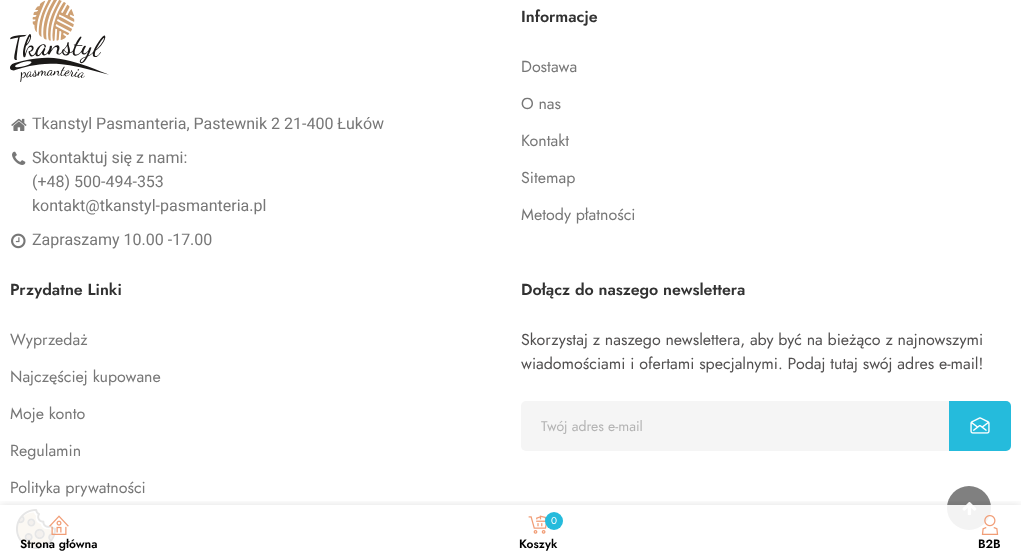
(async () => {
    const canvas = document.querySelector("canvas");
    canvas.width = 1021;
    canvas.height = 560;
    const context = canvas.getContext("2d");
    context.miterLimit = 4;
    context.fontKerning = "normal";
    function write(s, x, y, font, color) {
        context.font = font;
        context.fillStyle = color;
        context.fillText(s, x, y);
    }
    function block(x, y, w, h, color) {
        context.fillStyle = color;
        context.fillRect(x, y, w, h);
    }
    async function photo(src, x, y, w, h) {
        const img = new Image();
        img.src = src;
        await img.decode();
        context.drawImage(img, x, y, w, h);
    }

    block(0, 0, 1021, 560, "rgb(255, 255, 255)");
    await photo("media/1.png", 10, 0, 99, 82);
    await photo("media/2.png", 11, 118, 16, 13);
    write("Tkanstyl Pasmanteria, Pastewnik 2 21-400 Łuków", 32, 129, "16px Roboto", "rgb(119, 119, 119)");
    await photo("media/3.png", 12, 151, 14, 14);
    write("Skontaktuj się z nami:", 32, 163, "16px Roboto", "rgb(119, 119, 119)");
    write("(+48) 500-494-353", 32, 187, "16px Roboto", "rgb(119, 119, 119)");
    write("kontakt@tkanstyl-pasmanteria.pl", 32, 211, "16px Roboto", "rgb(119, 119, 119)");
    await photo("media/4.png", 11, 233, 15, 16);
    write("Zapraszamy 10.00 -17.00", 32, 245, "16px Roboto", "rgb(119, 119, 119)");
    write("Informacje", 521, 22, "600 16px Jost", "rgb(50, 50, 50)");
    write("Dostawa", 521, 72, "16px Jost", "rgb(119, 119, 119)");
    write("O nas", 521, 109, "16px Jost", "rgb(119, 119, 119)");
    write("Kontakt", 521, 146, "16px Jost", "rgb(119, 119, 119)");
    write("Sitemap", 521, 183, "16px Jost", "rgb(119, 119, 119)");
    write("Metody płatności", 521, 220, "16px Jost", "rgb(119, 119, 119)");
    write("Przydatne Linki", 10, 295, "600 16px Jost", "rgb(50, 50, 50)");
    write("Wyprzedaż", 10, 345, "16px Jost", "rgb(119, 119, 119)");
    write("Najczęściej kupowane", 10, 382, "16px Jost", "rgb(119, 119, 119)");
    write("Moje konto", 10, 419, "16px Jost", "rgb(119, 119, 119)");
    write("Regulamin", 10, 456, "16px Jost", "rgb(119, 119, 119)");
    write("Polityka prywatności", 10, 493, "16px Jost", "rgb(119, 119, 119)");
    write("Dołącz do naszego newslettera", 521, 295, "600 16px Jost", "rgb(50, 50, 50)");
    write("Skorzystaj z naszego newslettera, aby być na bieżąco z najnowszymi", 521, 345, "16px Jost", "rgb(82, 80, 80)");
    write("wiadomościami i ofertami specjalnymi. Podaj tutaj swój adres e-mail!", 521, 369, "16px Jost", "rgb(82, 80, 80)");
    context.fillStyle = "rgb(245, 245, 245)";
    context.beginPath();
    context.roundRect(521, 401, 428, 50, [5, 0, 0, 5]);
    context.fill();
    write("Twój adres e-mail", 541, 431, "14px Jost", "rgb(179, 179, 179)");
    context.fillStyle = "rgb(37, 187, 220)";
    context.beginPath();
    context.roundRect(949, 401, 62, 50, [0, 5, 5, 0]);
    context.fill();
    await photo("media/5.png", 970, 417, 20, 17);
    await photo("media/6.png", 16, 509, 40, 40);
    context.fillStyle = "rgb(128, 128, 128)";
    context.beginPath();
    context.arc(969, 508, 22, 0, Math.PI * 2);
    context.fill();
    await photo("media/7.png", 962, 502, 15, 14);
    context.save();
    context.beginPath();
    context.rect(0, 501, 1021, 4);
    context.clip();
    context.fillStyle = "rgba(0, 0, 0, 0.12)";
    context.filter = "blur(4.5px)";
    context.beginPath();
    context.rect(0, 505, 1021, 55);
    context.fill();
    context.filter = "none";
    context.restore();
    block(16, 505, 975, 44, "rgba(255, 255, 255, 0.9)");
    await photo("media/8.png", 49, 515, 20, 20);
    write("Strona główna", 20, 548, "600 12px Jost", "rgb(0, 0, 0)");
    await photo("media/9.png", 528, 515, 19, 19);
    context.fillStyle = "rgb(37, 187, 220)";
    context.beginPath();
    context.arc(554, 521, 9, 0, Math.PI * 2);
    context.fill();
    write("0", 551, 524, "10px Jost", "rgb(255, 255, 255)");
    write("Koszyk", 519, 548, "600 12px Jost", "rgb(0, 0, 0)");
    await photo("media/10.png", 981, 515, 18, 20);
    write("B2B", 978, 548, "600 12px Jost", "rgb(0, 0, 0)");
})();
